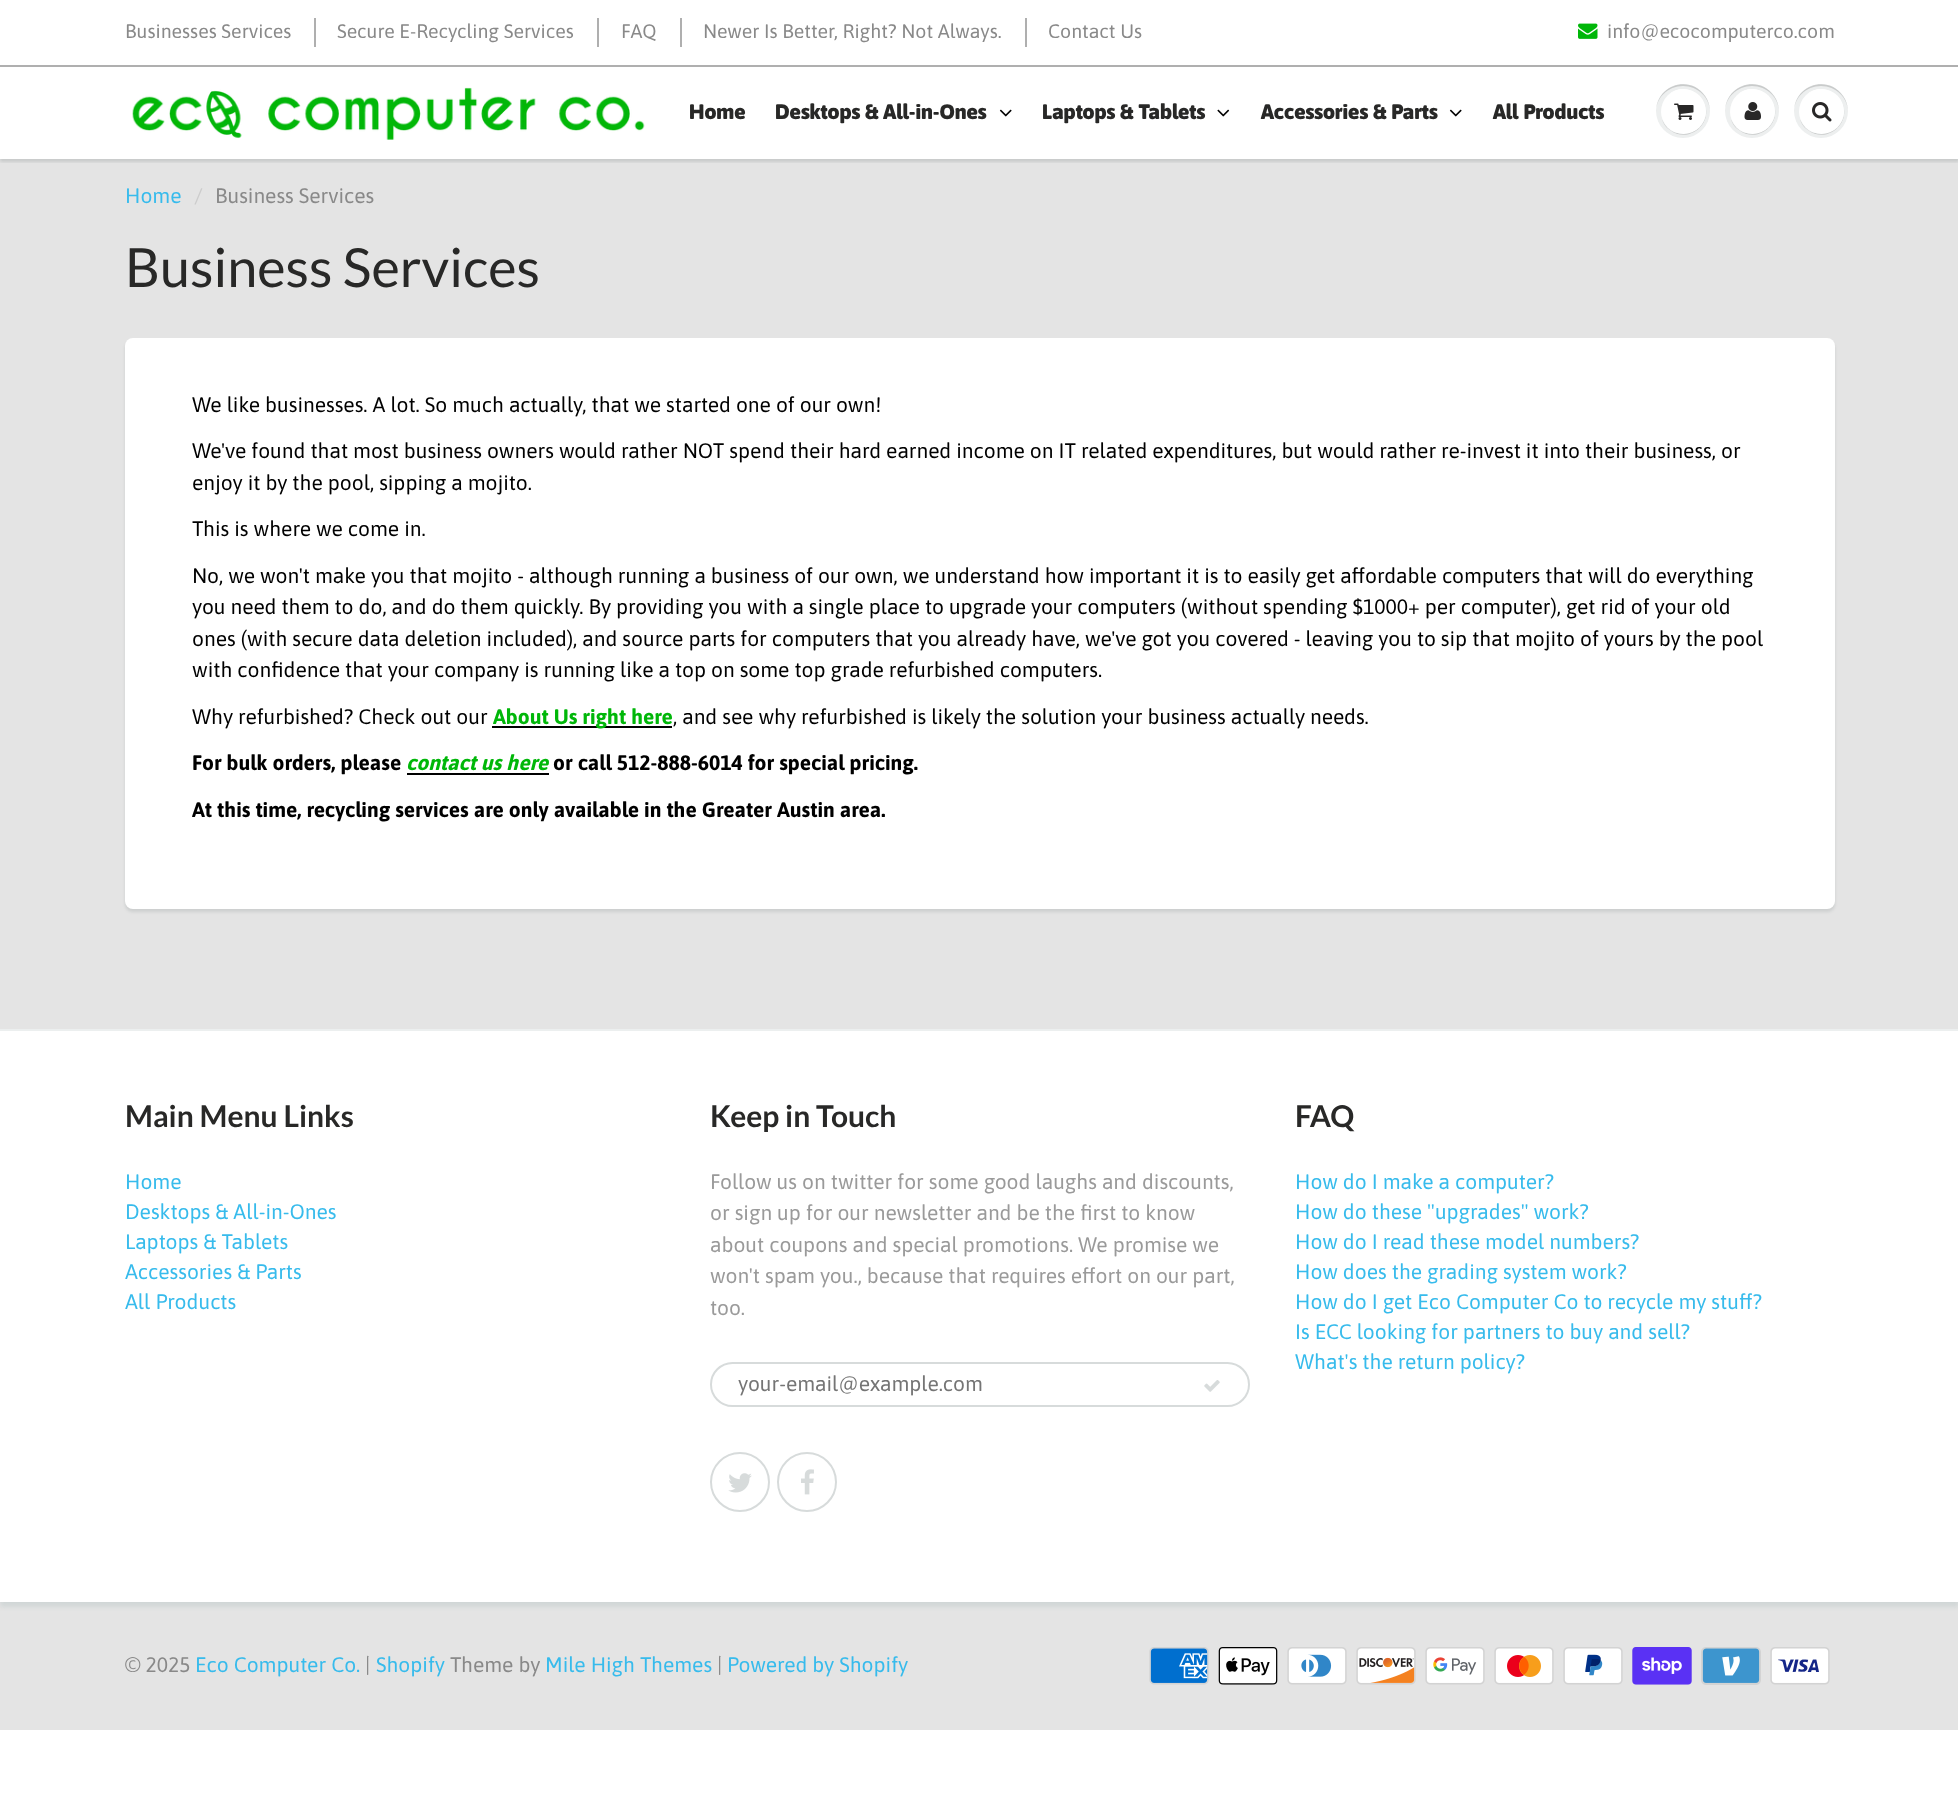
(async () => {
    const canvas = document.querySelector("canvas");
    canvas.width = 1958;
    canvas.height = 1795;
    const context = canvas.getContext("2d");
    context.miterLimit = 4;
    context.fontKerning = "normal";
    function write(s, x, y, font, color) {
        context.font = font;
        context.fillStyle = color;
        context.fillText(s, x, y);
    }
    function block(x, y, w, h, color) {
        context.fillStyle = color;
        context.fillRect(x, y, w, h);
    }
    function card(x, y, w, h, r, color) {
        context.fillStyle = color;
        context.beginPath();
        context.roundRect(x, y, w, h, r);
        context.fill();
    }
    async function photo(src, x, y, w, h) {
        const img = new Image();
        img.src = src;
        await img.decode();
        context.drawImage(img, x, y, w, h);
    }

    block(0, 0, 1958, 1795, "rgb(255, 255, 255)");
    write("Businesses Services", 125, 38, "19.5px Asap", "rgb(137, 137, 137)");
    block(314, 18, 2, 29, "rgb(175, 175, 175)");
    write("Secure E-Recycling Services", 337, 38, "19.5px Asap", "rgb(137, 137, 137)");
    block(597, 18, 2, 29, "rgb(175, 175, 175)");
    write("FAQ", 621, 38, "19.5px Asap", "rgb(137, 137, 137)");
    block(680, 18, 2, 29, "rgb(175, 175, 175)");
    write("Newer Is Better, Right? Not Always.", 703, 38, "19.5px Asap", "rgb(137, 137, 137)");
    block(1025, 18, 2, 29, "rgb(175, 175, 175)");
    write("Contact Us", 1048, 38, "19.5px Asap", "rgb(137, 137, 137)");
    await photo("media/1.png", 1578, 23, 20, 16);
    write("info@ecocomputerco.com", 1607, 38, "19.5px Asap", "rgb(137, 137, 137)");
    block(0, 159, 1958, 870, "rgb(228, 228, 228)");
    context.save();
    context.beginPath();
    context.rect(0, 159, 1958, 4);
    context.clip();
    context.fillStyle = "rgba(11, 25, 28, 0.12)";
    context.filter = "blur(1.5px)";
    context.beginPath();
    context.rect(0, 68, 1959, 94);
    context.fill();
    context.filter = "none";
    context.restore();
    block(0, 65, 1958, 2, "rgb(175, 175, 175)");
    await photo("media/2.png", 132, 87, 513, 53);
    write("Home", 689, 119, "900 21px Asap", "rgb(40, 40, 39)");
    write("Desktops & All-in-Ones", 775, 119, "900 21px Asap", "rgb(40, 40, 39)");
    await photo("media/3.png", 999, 109, 13, 8);
    write("Laptops & Tablets", 1042, 119, "900 21px Asap", "rgb(40, 40, 39)");
    await photo("media/4.png", 1217, 109, 13, 8);
    write("Accessories & Parts", 1261, 119, "900 21px Asap", "rgb(40, 40, 39)");
    await photo("media/3.png", 1449, 109, 13, 8);
    write("All Products", 1493, 119, "900 21px Asap", "rgb(40, 40, 39)");
    context.fillStyle = "rgb(237, 239, 239)";
    context.beginPath();
    context.arc(1683, 111, 27, 0, Math.PI * 2);
    context.fill();
    context.fillStyle = "rgb(201, 203, 203)";
    context.beginPath();
    context.moveTo(1683, 86);
    context.bezierCurveTo(1698, 86, 1710, 98, 1710, 112);
    context.bezierCurveTo(1710, 106, 1708, 100, 1705, 96);
    context.bezierCurveTo(1690, 74, 1656, 85, 1656, 112);
    context.bezierCurveTo(1656, 98, 1668, 86, 1683, 86);
    context.closePath();
    context.fill();
    context.beginPath();
    context.moveTo(1662, 119);
    context.bezierCurveTo(1663, 123, 1666, 128, 1670, 130);
    context.bezierCurveTo(1688, 144, 1712, 125, 1705, 105);
    context.bezierCurveTo(1713, 132, 1672, 146, 1662, 119);
    context.closePath();
    context.fill();
    context.fillStyle = "rgb(255, 255, 255)";
    context.beginPath();
    context.arc(1683.5, 111.5, 22.5, 0, Math.PI * 2);
    context.fill();
    context.beginPath();
    context.moveTo(1683, 90);
    context.bezierCurveTo(1701, 90, 1708, 107, 1704, 120);
    context.bezierCurveTo(1713, 98, 1685, 79, 1668, 95);
    context.bezierCurveTo(1672, 92, 1677, 90, 1683, 90);
    context.closePath();
    context.fill();
    await photo("media/5.png", 1674, 103, 20, 17);
    context.fillStyle = "rgb(237, 239, 239)";
    context.beginPath();
    context.arc(1752, 111, 27, 0, Math.PI * 2);
    context.fill();
    context.fillStyle = "rgb(201, 203, 203)";
    context.beginPath();
    context.moveTo(1752, 86);
    context.bezierCurveTo(1767, 86, 1779, 98, 1779, 112);
    context.bezierCurveTo(1779, 106, 1777, 100, 1774, 96);
    context.bezierCurveTo(1759, 74, 1725, 85, 1725, 112);
    context.bezierCurveTo(1725, 98, 1737, 86, 1752, 86);
    context.closePath();
    context.fill();
    context.beginPath();
    context.moveTo(1731, 119);
    context.bezierCurveTo(1732, 123, 1735, 128, 1739, 130);
    context.bezierCurveTo(1757, 144, 1781, 125, 1774, 105);
    context.bezierCurveTo(1782, 132, 1741, 146, 1731, 119);
    context.closePath();
    context.fill();
    context.fillStyle = "rgb(255, 255, 255)";
    context.beginPath();
    context.arc(1752.5, 111.5, 22.5, 0, Math.PI * 2);
    context.fill();
    context.beginPath();
    context.moveTo(1752, 90);
    context.bezierCurveTo(1770, 90, 1777, 107, 1773, 120);
    context.bezierCurveTo(1782, 98, 1754, 79, 1737, 95);
    context.bezierCurveTo(1741, 92, 1746, 90, 1752, 90);
    context.closePath();
    context.fill();
    await photo("media/6.png", 1744, 102, 17, 18);
    context.fillStyle = "rgb(237, 239, 239)";
    context.beginPath();
    context.arc(1821, 111, 27, 0, Math.PI * 2);
    context.fill();
    context.fillStyle = "rgb(201, 203, 203)";
    context.beginPath();
    context.moveTo(1821, 86);
    context.bezierCurveTo(1836, 86, 1848, 98, 1848, 112);
    context.bezierCurveTo(1848, 106, 1846, 100, 1843, 96);
    context.bezierCurveTo(1828, 74, 1794, 85, 1794, 112);
    context.bezierCurveTo(1794, 98, 1806, 86, 1821, 86);
    context.closePath();
    context.fill();
    context.beginPath();
    context.moveTo(1800, 119);
    context.bezierCurveTo(1801, 123, 1804, 128, 1808, 130);
    context.bezierCurveTo(1826, 144, 1850, 125, 1843, 105);
    context.bezierCurveTo(1851, 132, 1810, 146, 1800, 119);
    context.closePath();
    context.fill();
    context.fillStyle = "rgb(255, 255, 255)";
    context.beginPath();
    context.arc(1821.5, 111.5, 22.5, 0, Math.PI * 2);
    context.fill();
    context.beginPath();
    context.moveTo(1821, 90);
    context.bezierCurveTo(1839, 90, 1846, 107, 1842, 120);
    context.bezierCurveTo(1851, 98, 1823, 79, 1806, 95);
    context.bezierCurveTo(1810, 92, 1815, 90, 1821, 90);
    context.closePath();
    context.fill();
    await photo("media/7.png", 1812, 102, 20, 20);
    write("Home", 125, 203, "21px Asap", "rgb(55, 187, 236)");
    write("/", 194, 203, "21px Asap", "rgb(204, 204, 204)");
    write("Business Services", 215, 203, "21px Asap", "rgb(137, 137, 137)");
    write("Business Services", 125, 287, "54px Lato", "rgb(40, 40, 39)");
    context.fillStyle = "rgba(11, 25, 28, 0.1)";
    context.filter = "blur(1.5px)";
    context.beginPath();
    context.roundRect(125, 341, 1710, 571, 8);
    context.fill();
    context.filter = "none";
    card(125, 338, 1710, 571, 8, "rgb(255, 255, 255)");
    write("We like businesses. A lot. So much actually, that we started one of our own!", 192, 412, "21px Asap", "rgb(0, 0, 0)");
    write("We've found that most business owners would rather NOT spend their hard earned income on IT related expenditures, but would rather re-invest it into their business, or", 192, 458, "21px Asap", "rgb(0, 0, 0)");
    write("enjoy it by the pool, sipping a mojito.", 192, 490, "21px Asap", "rgb(0, 0, 0)");
    write("This is where we come in.", 192, 536, "21px Asap", "rgb(0, 0, 0)");
    write("No, we won't make you that mojito - although running a business of our own, we understand how important it is to easily get affordable computers that will do everything", 192, 583, "21px Asap", "rgb(0, 0, 0)");
    write("you need them to do, and do them quickly. By providing you with a single place to upgrade your computers (without spending $1000+ per computer), get rid of your old", 192, 614, "21px Asap", "rgb(0, 0, 0)");
    write("ones (with secure data deletion included), and source parts for computers that you already have, we've got you covered - leaving you to sip that mojito of yours by the pool", 192, 646, "21px Asap", "rgb(0, 0, 0)");
    write("with confidence that your company is running like a top on some top grade refurbished computers.", 192, 677, "21px Asap", "rgb(0, 0, 0)");
    write("Why refurbished? Check out our", 192, 724, "21px Asap", "rgb(0, 0, 0)");
    block(492, 726, 180, 2, "rgb(0, 0, 0)");
    write("About Us right here", 493, 724, "bold 21px Asap", "rgb(0, 183, 9)");
    write(", and see why refurbished is likely the solution your business actually needs.", 673, 724, "21px Asap", "rgb(0, 0, 0)");
    write("For bulk orders, please", 192, 770, "bold 21px Asap", "rgb(0, 0, 0)");
    write("contact us here", 406, 770, "italic bold 21px Asap", "rgb(0, 183, 9)");
    block(407, 773, 142, 2, "rgb(0, 0, 0)");
    write("or call 512-888-6014 for special pricing.", 553, 770, "bold 21px Asap", "rgb(0, 0, 0)");
    write("At this time, recycling services are only available in the Greater Austin area.", 192, 817, "bold 21px Asap", "rgb(0, 0, 0)");
    block(0, 1602, 1958, 128, "rgb(228, 228, 228)");
    context.save();
    context.beginPath();
    context.rect(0, 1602, 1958, 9);
    context.clip();
    context.fillStyle = "rgb(209, 215, 215)";
    context.filter = "blur(2px)";
    context.beginPath();
    context.rect(0, 1034, 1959, 573);
    context.fill();
    context.filter = "none";
    context.restore();
    block(0, 1029, 1958, 2, "rgb(236, 239, 239)");
    write("Main Menu Links", 125, 1127, "bold 30px Lato", "rgb(40, 40, 39)");
    write("Home", 125, 1189, "21px Asap", "rgb(55, 187, 236)");
    write("Desktops & All-in-Ones", 125, 1219, "21px Asap", "rgb(55, 187, 236)");
    write("Laptops & Tablets", 125, 1249, "21px Asap", "rgb(55, 187, 236)");
    write("Accessories & Parts", 125, 1279, "21px Asap", "rgb(55, 187, 236)");
    write("All Products", 125, 1309, "21px Asap", "rgb(55, 187, 236)");
    write("Keep in Touch", 710, 1127, "bold 30px Lato", "rgb(40, 40, 39)");
    write("Follow us on twitter for some good laughs and discounts,", 710, 1189, "21px Asap", "rgb(154, 154, 154)");
    write("or sign up for our newsletter and be the first to know", 710, 1220, "21px Asap", "rgb(154, 154, 154)");
    write("about coupons and special promotions. We promise we", 710, 1252, "21px Asap", "rgb(154, 154, 154)");
    write("won't spam you., because that requires effort on our part,", 710, 1283, "21px Asap", "rgb(154, 154, 154)");
    write("too.", 710, 1315, "21px Asap", "rgb(154, 154, 154)");
    context.beginPath();
    context.roundRect(711, 1363, 538, 43, 21.5);
    context.strokeStyle = "rgb(215, 219, 219)";
    context.lineWidth = 2;
    context.stroke();
    write("your-email@example.com", 738, 1391, "21px Asap", "rgb(117, 117, 117)");
    await photo("media/8.png", 1204, 1380, 16, 12);
    context.beginPath();
    context.arc(740, 1482, 29, 0, Math.PI * 2);
    context.stroke();
    await photo("media/9.png", 728, 1473, 24, 20);
    context.beginPath();
    context.arc(807, 1482, 29, 0, Math.PI * 2);
    context.stroke();
    await photo("media/10.png", 801, 1469, 13, 26);
    write("FAQ", 1295, 1127, "bold 30px Lato", "rgb(40, 40, 39)");
    write("How do I make a computer?", 1295, 1189, "21px Asap", "rgb(55, 187, 236)");
    write("How do these \"upgrades\" work?", 1295, 1219, "21px Asap", "rgb(55, 187, 236)");
    write("How do I read these model numbers?", 1295, 1249, "21px Asap", "rgb(55, 187, 236)");
    write("How does the grading system work?", 1295, 1279, "21px Asap", "rgb(55, 187, 236)");
    write("How do I get Eco Computer Co to recycle my stuff?", 1295, 1309, "21px Asap", "rgb(55, 187, 236)");
    write("Is ECC looking for partners to buy and sell?", 1295, 1339, "21px Asap", "rgb(55, 187, 236)");
    write("What's the return policy?", 1295, 1369, "21px Asap", "rgb(55, 187, 236)");
    write("© 2025", 125, 1672, "21px Asap", "rgb(137, 137, 137)");
    write("Eco Computer Co.", 195, 1672, "21px Asap", "rgb(55, 187, 236)");
    write("|", 365, 1672, "21px Asap", "rgb(137, 137, 137)");
    write("Shopify", 376, 1672, "21px Asap", "rgb(55, 187, 236)");
    write("Theme by", 450, 1672, "21px Asap", "rgb(137, 137, 137)");
    write("Mile High Themes", 545, 1672, "21px Asap", "rgb(55, 187, 236)");
    write("|", 717, 1672, "21px Asap", "rgb(137, 137, 137)");
    write("Powered by Shopify", 727, 1672, "21px Asap", "rgb(55, 187, 236)");
    await photo("media/11.png", 1149, 1647, 60, 38);
    await photo("media/12.png", 1218, 1647, 60, 38);
    await photo("media/13.png", 1287, 1647, 60, 38);
    await photo("media/14.png", 1356, 1647, 60, 38);
    await photo("media/15.png", 1425, 1647, 60, 38);
    await photo("media/16.png", 1494, 1647, 60, 38);
    await photo("media/17.png", 1563, 1647, 60, 38);
    await photo("media/18.png", 1632, 1647, 60, 38);
    await photo("media/19.png", 1701, 1647, 60, 38);
    await photo("media/20.png", 1770, 1647, 60, 38);
})();
